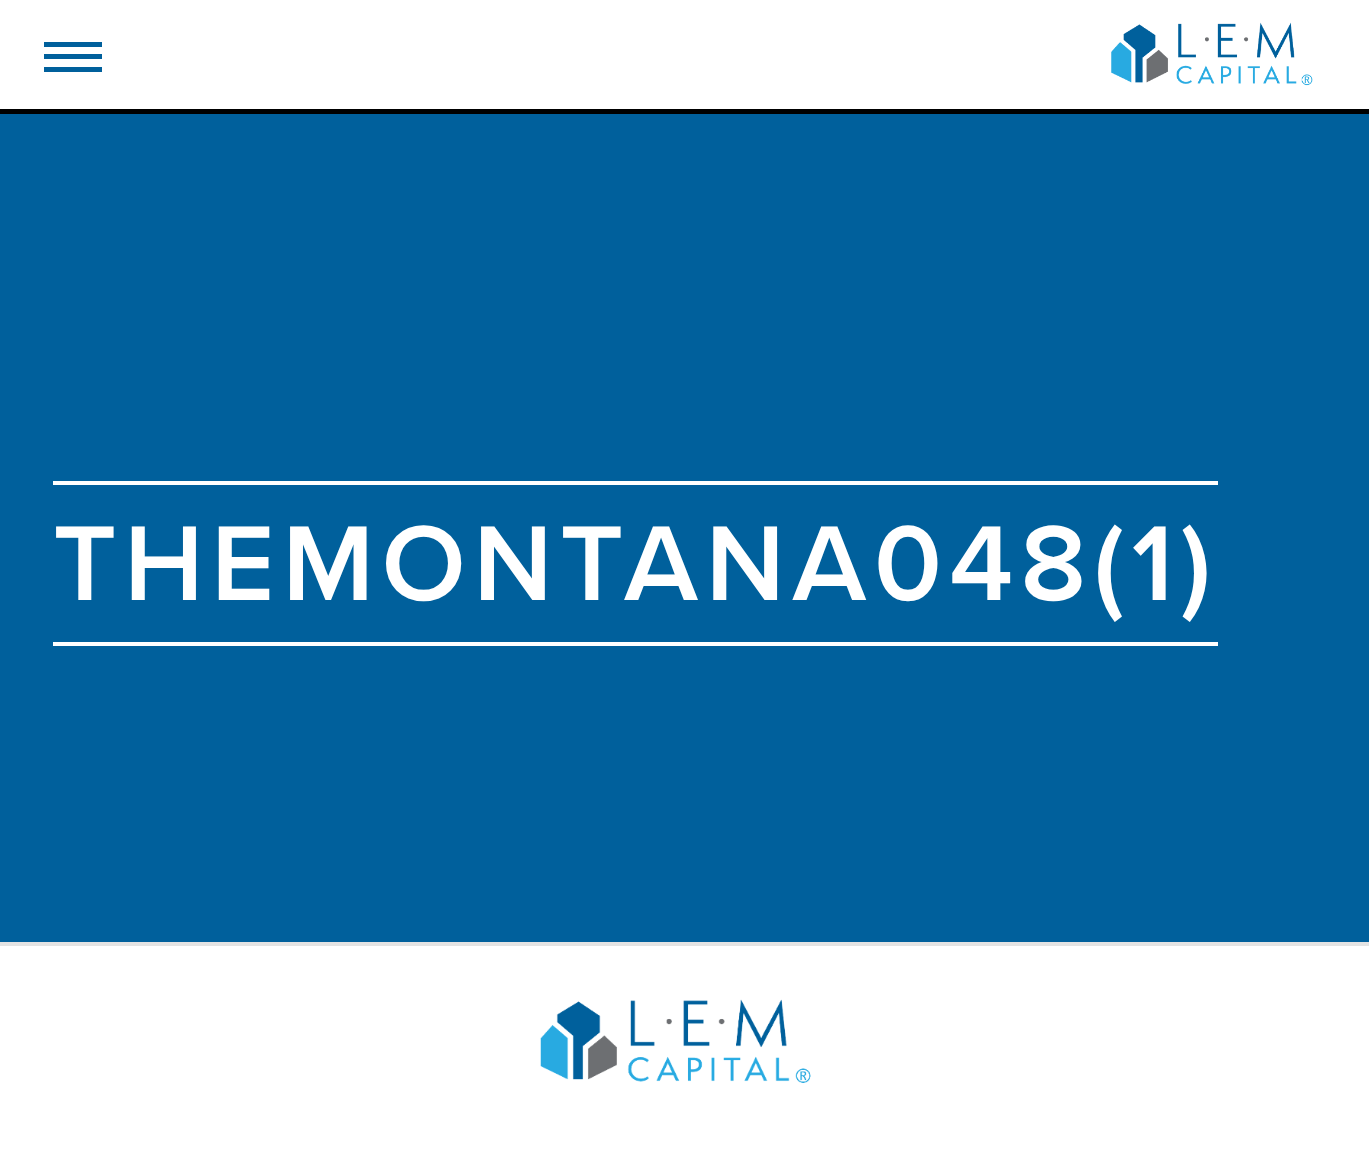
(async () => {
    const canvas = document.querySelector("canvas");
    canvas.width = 1369;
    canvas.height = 1149;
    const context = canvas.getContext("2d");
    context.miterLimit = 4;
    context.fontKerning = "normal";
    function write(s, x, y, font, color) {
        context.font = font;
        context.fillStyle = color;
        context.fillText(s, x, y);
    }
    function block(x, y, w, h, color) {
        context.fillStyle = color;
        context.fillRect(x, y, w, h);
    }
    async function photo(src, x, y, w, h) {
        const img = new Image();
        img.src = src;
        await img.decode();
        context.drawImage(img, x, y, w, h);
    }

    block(0, 0, 1369, 1149, "rgb(0, 0, 0)");
    block(0, 0, 1369, 109, "rgb(255, 255, 255)");
    block(44, 42, 58, 5, "rgb(0, 96, 156)");
    block(44, 54, 58, 5, "rgb(0, 96, 156)");
    block(44, 67, 58, 5, "rgb(0, 96, 156)");
    await photo("media/1.png", 1111, 22, 202, 64);
    block(0, 114, 1369, 828, "rgb(0, 96, 156)");
    block(53, 481, 1165, 4, "rgb(255, 255, 255)");
    block(53, 642, 1165, 4, "rgb(255, 255, 255)");
    context.letterSpacing = "7.4px";
    write("THEMONTANA048(1)", 53, 600, "600 110.25px Proxima Nova", "rgb(255, 255, 255)");
    block(0, 946, 1369, 203, "rgb(255, 255, 255)");
    block(0, 942, 1369, 4, "rgb(227, 227, 227)");
    await photo("media/2.png", 540, 999, 271, 84);
})();
